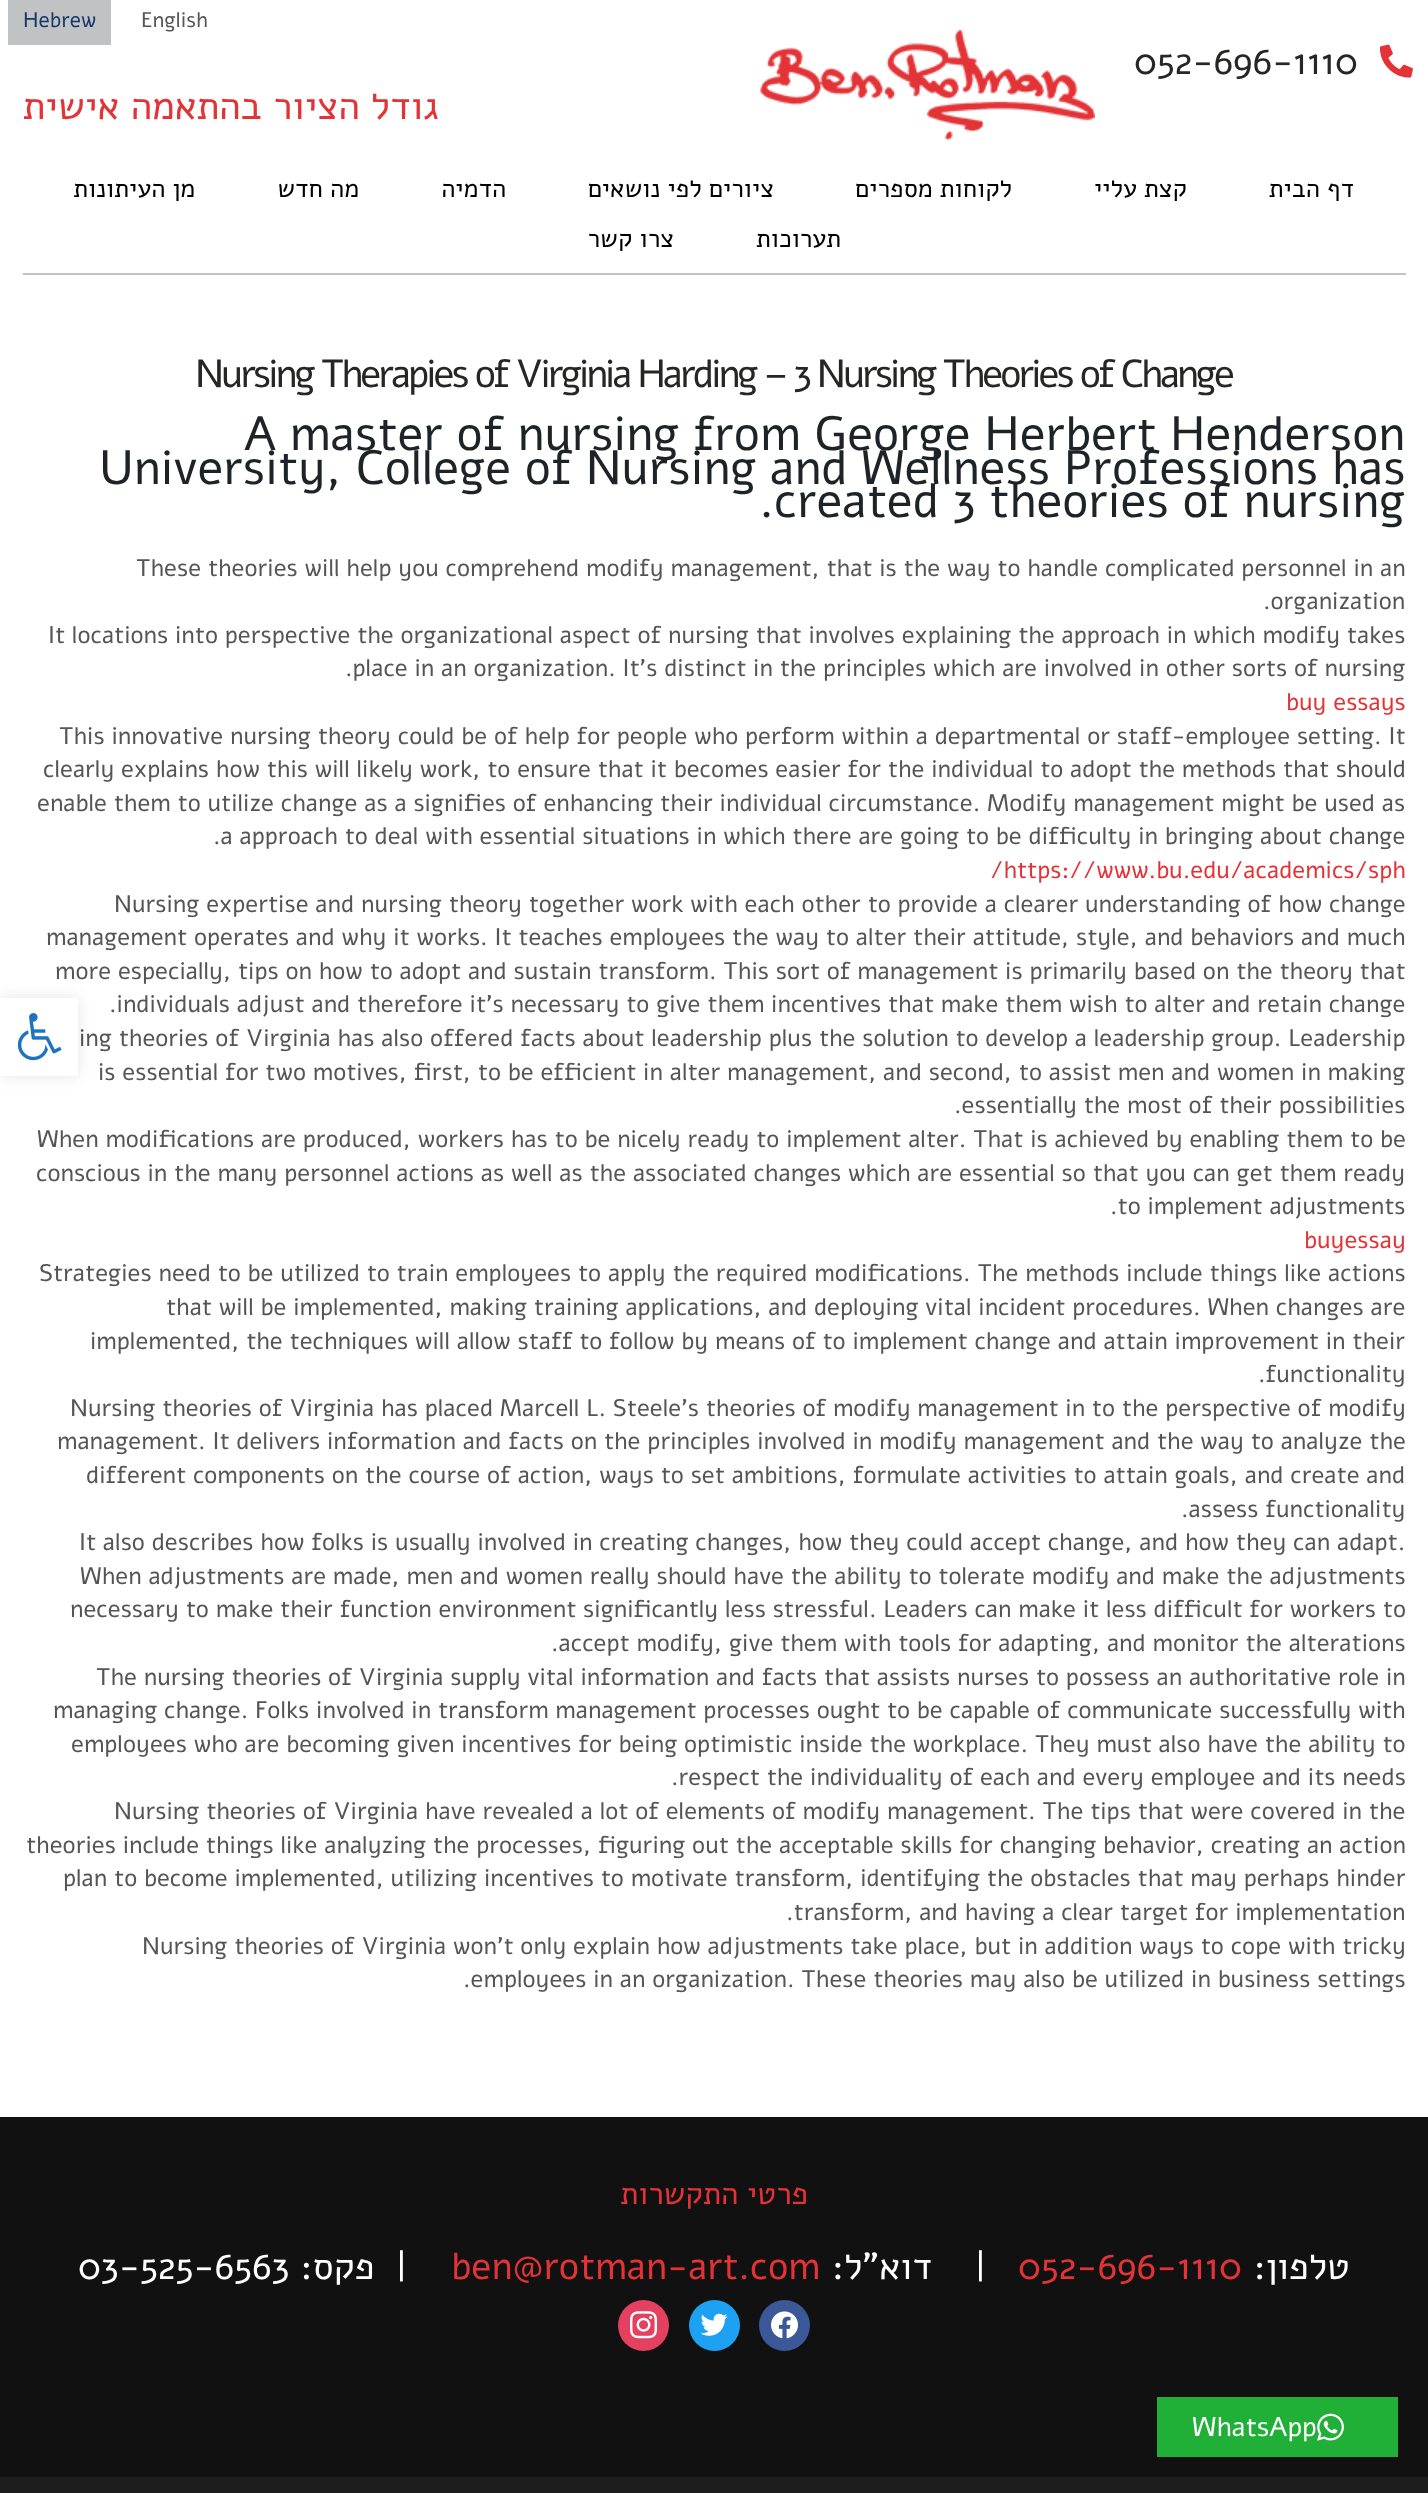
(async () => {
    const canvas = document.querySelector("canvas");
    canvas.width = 1428;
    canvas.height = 2493;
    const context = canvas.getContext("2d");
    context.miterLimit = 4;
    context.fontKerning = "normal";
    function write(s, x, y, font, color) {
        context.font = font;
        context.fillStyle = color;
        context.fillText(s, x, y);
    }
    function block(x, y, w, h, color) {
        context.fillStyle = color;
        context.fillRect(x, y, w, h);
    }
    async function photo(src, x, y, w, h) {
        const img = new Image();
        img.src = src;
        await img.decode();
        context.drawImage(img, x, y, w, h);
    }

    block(0, 0, 1428, 2493, "rgb(255, 255, 255)");
    block(8, 0, 103, 45, "rgb(192, 194, 196)");
    write("Hebrew", 23, 27, "21px Alef", "rgb(20, 55, 106)");
    write("English", 141, 27, "21px Alef", "rgb(85, 85, 85)");
    await photo("media/1.png", 760, 30, 335, 110);
    write("052-696-1110", 1134, 74, "37.5px Alef", "rgb(38, 38, 37)");
    await photo("media/2.png", 1379, 44, 34, 34);
    context.direction = "rtl";
    write("גודל הציור בהתאמה אישית", 439, 119, "39px Alef", "rgb(227, 51, 55)");
    block(23, 273, 1383, 2, "rgb(194, 194, 194)");
    write("מן העיתונות", 195, 197, "25.5px Alef", "rgb(0, 0, 0)");
    write("מה חדש", 359, 197, "25.5px Alef", "rgb(0, 0, 0)");
    write("הדמיה", 506, 197, "25.5px Alef", "rgb(0, 0, 0)");
    write("ציורים לפי נושאים", 774, 197, "25.5px Alef", "rgb(0, 0, 0)");
    write("לקוחות מספרים", 1012, 197, "25.5px Alef", "rgb(0, 0, 0)");
    write("קצת עליי", 1187, 197, "25.5px Alef", "rgb(0, 0, 0)");
    write("דף הבית", 1354, 197, "25.5px Alef", "rgb(0, 0, 0)");
    write("צרו קשר", 674, 247, "25.5px Alef", "rgb(0, 0, 0)");
    write("תערוכות", 841, 247, "25.5px Alef", "rgb(0, 0, 0)");
    context.letterSpacing = "-3px";
    context.direction = "ltr";
    write("Nursing Therapies of Virginia Harding – 3 Nursing Theories of Change", 195, 387, "39px Alef", "rgb(38, 38, 37)");
    context.letterSpacing = "0px";
    write("A master of nursing from George Herbert Henderson", 244, 450, "48px Alef", "rgb(29, 35, 39)");
    write("University, College of Nursing and Wellness Professions has", 99, 484, "48px Alef", "rgb(29, 35, 39)");
    write(".created 3 theories of nursing", 759, 517, "48px Alef", "rgb(29, 35, 39)");
    write("These theories will help you comprehend modify management, that is the way to handle complicated personnel in an", 136, 576, "24px Alef", "rgb(85, 85, 85)");
    write(".organization", 1263, 609, "24px Alef", "rgb(85, 85, 85)");
    write("It locations into perspective the organizational aspect of nursing that involves explaining the approach in which modify takes", 48, 643, "24px Alef", "rgb(85, 85, 85)");
    write(".place in an organization. It’s distinct in the principles which are involved in other sorts of nursing", 345, 676, "24px Alef", "rgb(85, 85, 85)");
    write("buy essays", 1286, 710, "24px Alef", "rgb(227, 51, 55)");
    write("This innovative nursing theory could be of help for people who perform within a departmental or staff-employee setting. It", 59, 744, "24px Alef", "rgb(85, 85, 85)");
    write("clearly explains how this will likely work, to ensure that it becomes easier for the individual to adopt the methods that should", 43, 777, "24px Alef", "rgb(85, 85, 85)");
    write("enable them to utilize change as a signifies of enhancing their individual circumstance. Modify management might be used as", 37, 811, "24px Alef", "rgb(85, 85, 85)");
    write(".a approach to deal with essential situations in which there are going to be difficulty in bringing about change", 213, 844, "24px Alef", "rgb(85, 85, 85)");
    write("/https://www.bu.edu/academics/sph", 990, 878, "24px Alef", "rgb(227, 51, 55)");
    write("Nursing expertise and nursing theory together work with each other to provide a clearer understanding of how change", 114, 912, "24px Alef", "rgb(85, 85, 85)");
    write("management operates and why it works. It teaches employees the way to alter their attitude, style, and behaviors and much", 46, 945, "24px Alef", "rgb(85, 85, 85)");
    write("more especially, tips on how to adopt and sustain transform. This sort of management is primarily based on the theory that", 55, 979, "24px Alef", "rgb(85, 85, 85)");
    write(".individuals adjust and therefore it’s necessary to give them incentives that make them wish to alter and retain change", 109, 1012, "24px Alef", "rgb(85, 85, 85)");
    write("ing theories of Virginia has also offered facts about leadership plus the solution to develop a leadership group. Leadership", 79, 1046, "24px Alef", "rgb(85, 85, 85)");
    write("is essential for two motives, first, to be efficient in alter management, and second, to assist men and women in making", 98, 1080, "24px Alef", "rgb(85, 85, 85)");
    write(".essentially the most of their possibilities", 954, 1113, "24px Alef", "rgb(85, 85, 85)");
    write("When modifications are produced, workers has to be nicely ready to implement alter. That is achieved by enabling them to be", 37, 1147, "24px Alef", "rgb(85, 85, 85)");
    write("conscious in the many personnel actions as well as the associated changes which are essential so that you can get them ready", 36, 1181, "24px Alef", "rgb(85, 85, 85)");
    write(".to implement adjustments", 1110, 1214, "24px Alef", "rgb(85, 85, 85)");
    write("buyessay", 1304, 1248, "24px Alef", "rgb(227, 51, 55)");
    write("Strategies need to be utilized to train employees to apply the required modifications. The methods include things like actions", 39, 1281, "24px Alef", "rgb(85, 85, 85)");
    write("that will be implemented, making training applications, and deploying vital incident procedures. When changes are", 166, 1315, "24px Alef", "rgb(85, 85, 85)");
    write("implemented, the techniques will allow staff to follow by means of to implement change and attain improvement in their", 90, 1349, "24px Alef", "rgb(85, 85, 85)");
    write(".functionality", 1258, 1382, "24px Alef", "rgb(85, 85, 85)");
    write("Nursing theories of Virginia has placed Marcell L. Steele’s theories of modify management in to the perspective of modify", 70, 1416, "24px Alef", "rgb(85, 85, 85)");
    write("management. It delivers information and facts on the principles involved in modify management and the way to analyze the", 57, 1449, "24px Alef", "rgb(85, 85, 85)");
    write("different components on the course of action, ways to set ambitions, formulate activities to attain goals, and create and", 86, 1483, "24px Alef", "rgb(85, 85, 85)");
    write(".assess functionality", 1181, 1517, "24px Alef", "rgb(85, 85, 85)");
    write("It also describes how folks is usually involved in creating changes, how they could accept change, and how they can adapt.", 79, 1550, "24px Alef", "rgb(85, 85, 85)");
    write("When adjustments are made, men and women really should have the ability to tolerate modify and make the adjustments", 80, 1584, "24px Alef", "rgb(85, 85, 85)");
    write("necessary to make their function environment significantly less stressful. Leaders can make it less difficult for workers to", 70, 1617, "24px Alef", "rgb(85, 85, 85)");
    write(".accept modify, give them with tools for adapting, and monitor the alterations", 551, 1651, "24px Alef", "rgb(85, 85, 85)");
    write("The nursing theories of Virginia supply vital information and facts that assists nurses to possess an authoritative role in", 96, 1685, "24px Alef", "rgb(85, 85, 85)");
    write("managing change. Folks involved in transform management processes ought to be capable of communicate successfully with", 53, 1718, "24px Alef", "rgb(85, 85, 85)");
    write("employees who are becoming given incentives for being optimistic inside the workplace. They must also have the ability to", 71, 1752, "24px Alef", "rgb(85, 85, 85)");
    write(".respect the individuality of each and every employee and its needs", 671, 1785, "24px Alef", "rgb(85, 85, 85)");
    write("Nursing theories of Virginia have revealed a lot of elements of modify management. The tips that were covered in the", 114, 1819, "24px Alef", "rgb(85, 85, 85)");
    write("theories include things like analyzing the processes, figuring out the acceptable skills for changing behavior, creating an action", 26, 1853, "24px Alef", "rgb(85, 85, 85)");
    write("plan to become implemented, utilizing incentives to motivate transform, identifying the obstacles that may perhaps hinder", 63, 1886, "24px Alef", "rgb(85, 85, 85)");
    write(".transform, and having a clear target for implementation", 786, 1920, "24px Alef", "rgb(85, 85, 85)");
    write("Nursing theories of Virginia won’t only explain how adjustments take place, but in addition ways to cope with tricky", 142, 1954, "24px Alef", "rgb(85, 85, 85)");
    write(".employees in an organization. These theories may also be utilized in business settings", 463, 1987, "24px Alef", "rgb(85, 85, 85)");
    context.fillStyle = "rgba(0, 0, 0, 0.1)";
    context.filter = "blur(7.5px)";
    context.beginPath();
    context.rect(0, 998, 78, 78);
    context.fill();
    context.filter = "none";
    block(0, 998, 78, 78, "rgb(255, 255, 255)");
    await photo("media/3.png", 17, 1013, 45, 48);
    block(0, 2117, 1428, 360, "rgb(17, 17, 17)");
    context.direction = "rtl";
    write("פרטי התקשרות", 808, 2204, "31.25px Alef", "rgb(227, 51, 55)");
    context.direction = "ltr";
    write("03-525-6563", 78, 2279, "37.5px Alef", "rgb(255, 255, 255)");
    context.direction = "rtl";
    write("|  פקס:", 407, 2279, "37.5px Alef", "rgb(255, 255, 255)");
    context.direction = "ltr";
    write("ben@rotman-art.com", 451, 2279, "37.5px Alef", "rgb(227, 51, 55)");
    context.direction = "rtl";
    write("|    דוא”ל:", 986, 2279, "37.5px Alef", "rgb(255, 255, 255)");
    context.direction = "ltr";
    write("052-696-1110", 1018, 2279, "37.5px Alef", "rgb(227, 51, 55)");
    context.direction = "rtl";
    write("טלפון:", 1350, 2279, "37.5px Alef", "rgb(255, 255, 255)");
    context.fillStyle = "rgb(228, 64, 95)";
    context.beginPath();
    context.arc(643.5, 2325.5, 25.5, 0, Math.PI * 2);
    context.fill();
    await photo("media/4.png", 630, 2311, 28, 28);
    context.fillStyle = "rgb(29, 161, 242)";
    context.beginPath();
    context.arc(714.5, 2325.5, 25.5, 0, Math.PI * 2);
    context.fill();
    await photo("media/5.png", 700, 2313, 28, 23);
    context.fillStyle = "rgb(59, 89, 152)";
    context.beginPath();
    context.arc(784.5, 2325.5, 25.5, 0, Math.PI * 2);
    context.fill();
    await photo("media/6.png", 771, 2311, 27, 28);
    block(1157, 2397, 241, 60, "rgb(32, 176, 56)");
    context.direction = "ltr";
    write("WhatsApp", 1192, 2436, "27px Alef", "rgb(255, 255, 255)");
    await photo("media/7.png", 1317, 2413, 27, 28);
    block(0, 2477, 1428, 16, "rgb(29, 29, 29)");
})();
